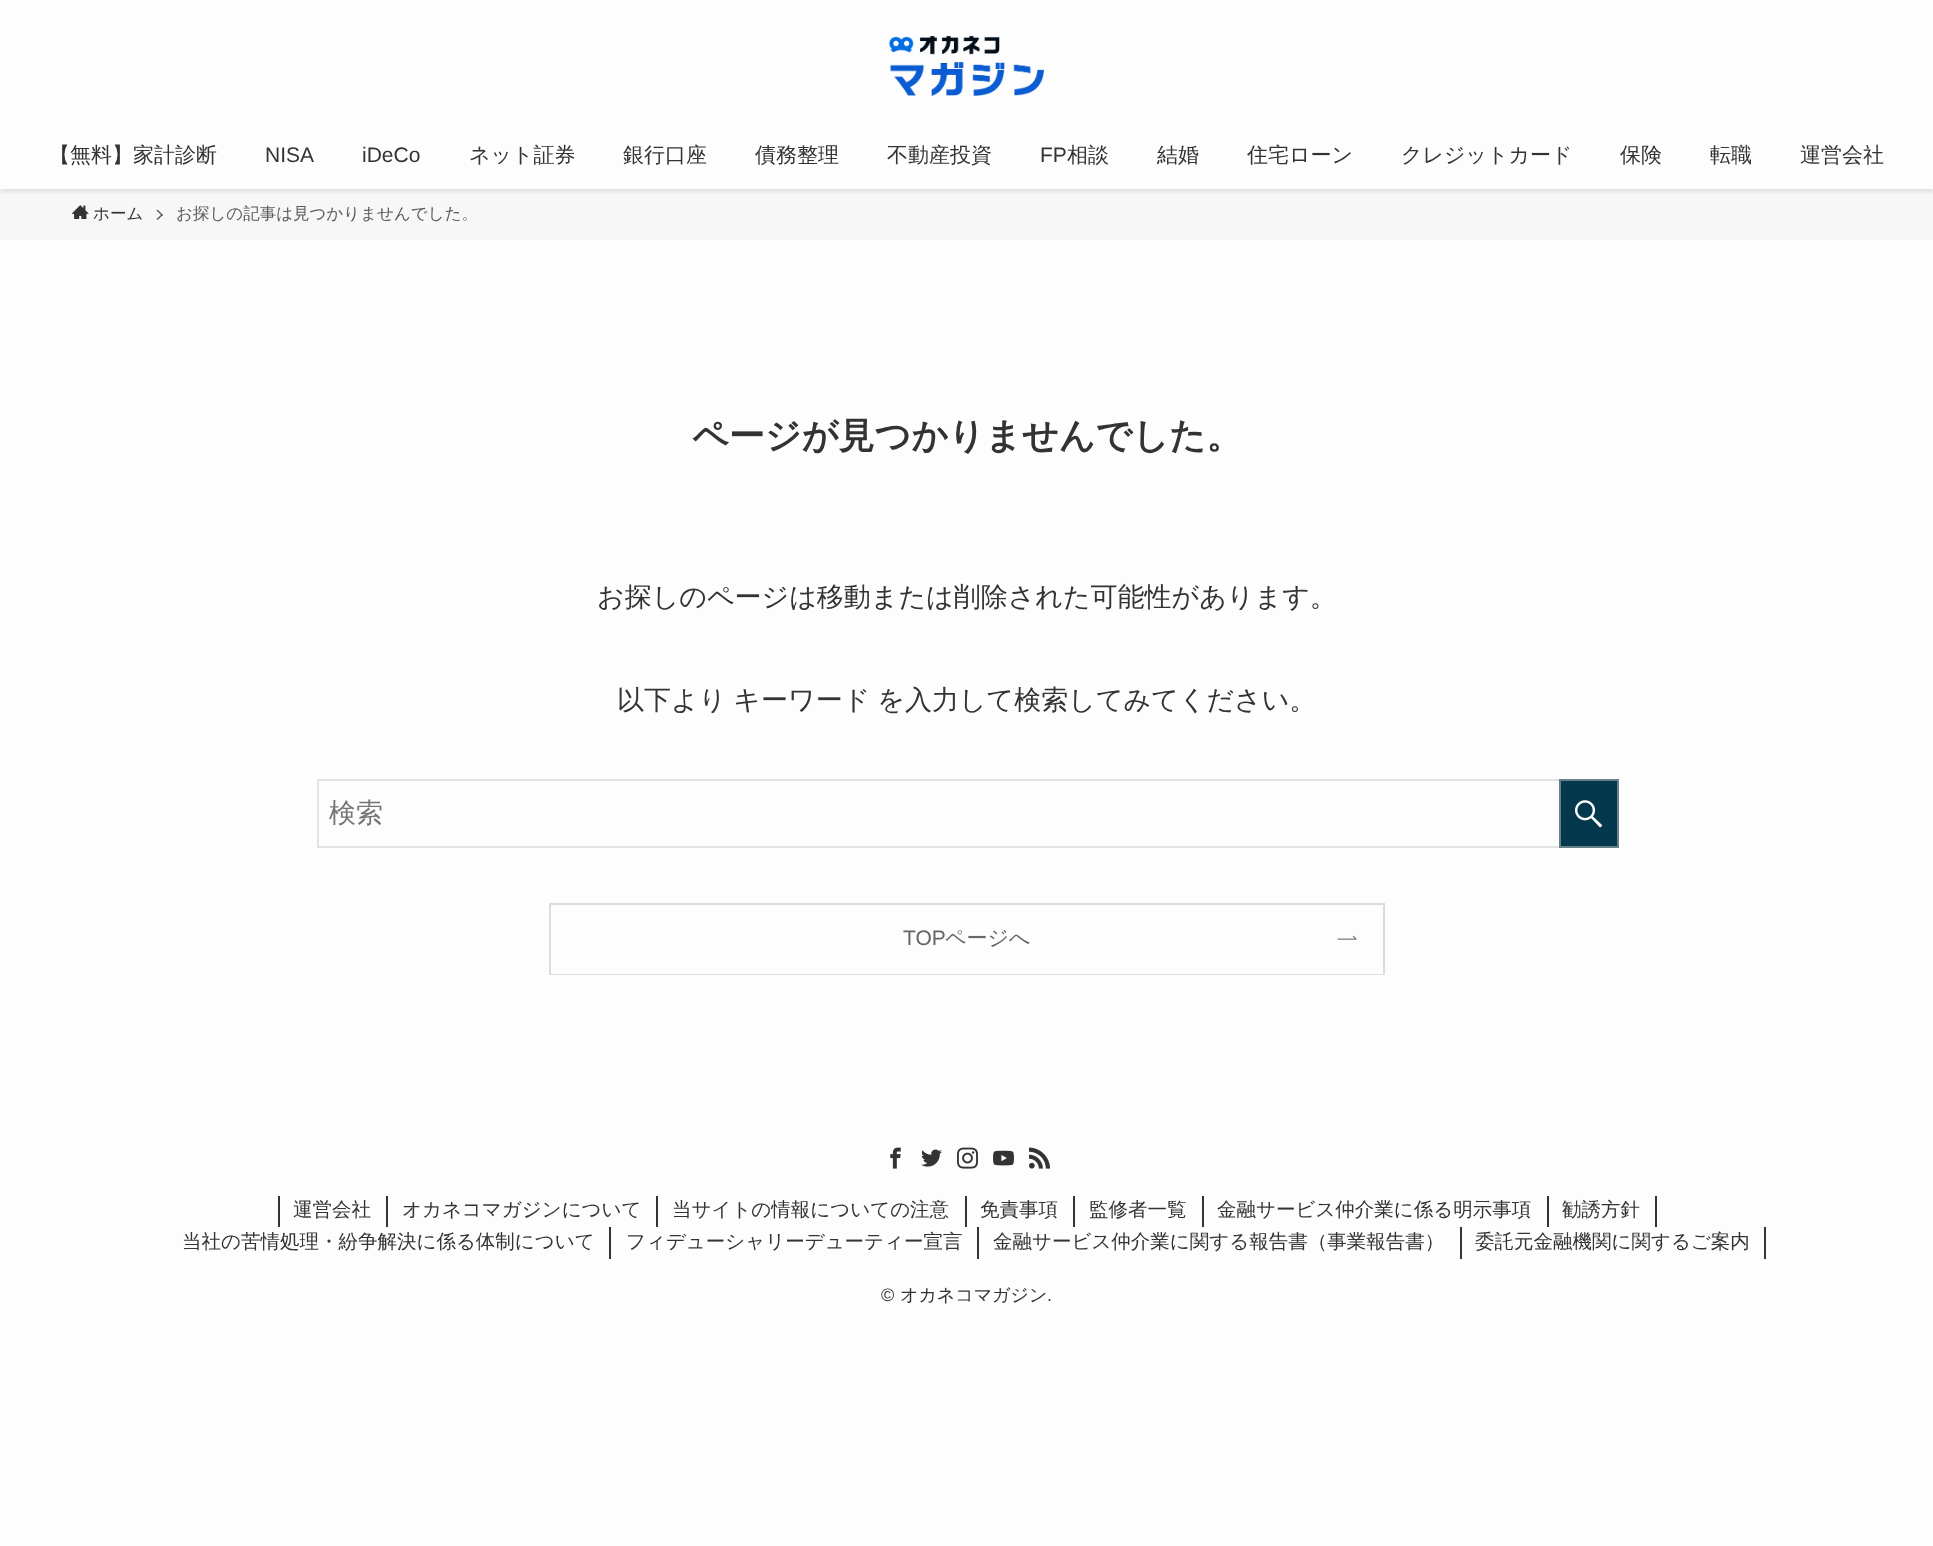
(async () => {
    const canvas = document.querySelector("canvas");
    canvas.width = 1933;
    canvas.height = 1546;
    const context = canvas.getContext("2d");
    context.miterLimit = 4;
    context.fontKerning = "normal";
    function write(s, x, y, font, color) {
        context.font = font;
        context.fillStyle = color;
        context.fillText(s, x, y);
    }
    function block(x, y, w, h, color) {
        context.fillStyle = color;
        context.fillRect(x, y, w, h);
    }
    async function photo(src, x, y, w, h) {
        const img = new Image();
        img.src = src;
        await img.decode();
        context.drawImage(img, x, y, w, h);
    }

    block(0, 0, 1933, 1546, "rgb(253, 253, 253)");
    block(0, 189, 1933, 51, "rgb(247, 247, 247)");
    context.save();
    context.beginPath();
    context.rect(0, 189, 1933, 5);
    context.clip();
    context.fillStyle = "rgba(0, 0, 0, 0.12)";
    context.filter = "blur(3px)";
    context.beginPath();
    context.rect(0, 2, 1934, 189);
    context.fill();
    context.filter = "none";
    context.restore();
    await photo("media/1.png", 889, 36, 155, 60);
    write("【無料】家計診断", 49, 162, "500 21px WenQuanYi Zen Hei", "rgb(51, 51, 51)");
    write("NISA", 265, 162, "21px Liberation Sans", "rgb(51, 51, 51)");
    write("iDeCo", 362, 162, "21px Liberation Sans", "rgb(51, 51, 51)");
    write("ネット証券", 469, 162, "500 21px WenQuanYi Zen Hei", "rgb(51, 51, 51)");
    write("銀行口座", 623, 162, "500 21px WenQuanYi Zen Hei", "rgb(51, 51, 51)");
    write("債務整理", 755, 162, "500 21px WenQuanYi Zen Hei", "rgb(51, 51, 51)");
    write("不動産投資", 887, 162, "500 21px WenQuanYi Zen Hei", "rgb(51, 51, 51)");
    write("FP", 1040, 162, "21px Liberation Sans", "rgb(51, 51, 51)");
    write("相談", 1067, 162, "500 21px WenQuanYi Zen Hei", "rgb(51, 51, 51)");
    write("結婚", 1157, 162, "500 21px WenQuanYi Zen Hei", "rgb(51, 51, 51)");
    write("住宅ローン", 1247, 162, "500 21px WenQuanYi Zen Hei", "rgb(51, 51, 51)");
    write("クレジットカード", 1401, 162, "500 21px WenQuanYi Zen Hei", "rgb(51, 51, 51)");
    write("保険", 1620, 162, "500 21px WenQuanYi Zen Hei", "rgb(51, 51, 51)");
    write("転職", 1710, 162, "500 21px WenQuanYi Zen Hei", "rgb(51, 51, 51)");
    write("運営会社", 1800, 162, "500 21px WenQuanYi Zen Hei", "rgb(51, 51, 51)");
    await photo("media/2.png", 72, 205, 17, 14);
    write("ホーム", 93, 219, "500 16.5px WenQuanYi Zen Hei", "rgb(51, 51, 51)");
    context.fillStyle = "rgb(90, 90, 90)";
    context.beginPath();
    context.moveTo(157.5, 209.5);
    context.lineTo(163, 215);
    context.lineTo(162, 216);
    context.lineTo(156.5, 210.5);
    context.closePath();
    context.fill();
    context.beginPath();
    context.moveTo(162, 214);
    context.lineTo(163, 215);
    context.lineTo(157.5, 220);
    context.lineTo(156.5, 219);
    context.closePath();
    context.fill();
    write("お探しの記事は見つかりませんでした。", 176, 219, "500 16.5px WenQuanYi Zen Hei", "rgb(90, 90, 90)");
    write("ページが見つかりませんでした。", 692, 448, "bold 36px WenQuanYi Zen Hei", "rgb(51, 51, 51)");
    write("お探しのページは移動または削除された可能性があります。", 597, 606, "500 27px WenQuanYi Zen Hei", "rgb(51, 51, 51)");
    context.wordSpacing = "-1px";
    write("以下より キーワード を入力して検索してみてください。", 617, 709, "500 27px WenQuanYi Zen Hei", "rgb(51, 51, 51)");
    context.strokeStyle = "rgb(227, 227, 227)";
    context.lineWidth = 2;
    context.strokeRect(318, 780, 1300, 67);
    context.wordSpacing = "0px";
    write("検索", 329, 822, "500 27px WenQuanYi Zen Hei", "rgb(117, 117, 117)");
    context.fillStyle = "rgb(4, 56, 76)";
    context.beginPath();
    context.rect(1560, 780, 58, 67);
    context.fill();
    context.strokeStyle = "rgb(102, 128, 138)";
    context.stroke();
    await photo("media/3.png", 1575, 800, 27, 28);
    context.strokeStyle = "rgb(220, 220, 220)";
    context.strokeRect(550, 904, 834, 70);
    block(551, 973, 832, 1, "rgb(255, 255, 255)");
    write("TOP", 903, 945, "21px Liberation Sans", "rgb(102, 102, 102)");
    write("ページへ", 945, 945, "500 21px WenQuanYi Zen Hei", "rgb(102, 102, 102)");
    await photo("media/4.png", 1337, 935, 20, 5);
    await photo("media/5.png", 890, 1147, 11, 22);
    await photo("media/6.png", 921, 1149, 21, 18);
    await photo("media/7.png", 957, 1147, 21, 22);
    await photo("media/8.png", 993, 1150, 21, 16);
    await photo("media/9.png", 1029, 1147, 21, 22);
    block(386, 1196, 2, 31, "rgb(51, 51, 51)");
    block(278, 1196, 2, 31, "rgb(51, 51, 51)");
    write("運営会社", 293, 1216, "500 19.5px WenQuanYi Zen Hei", "rgb(51, 51, 51)");
    block(656, 1196, 2, 31, "rgb(51, 51, 51)");
    write("オカネコマガジンについて", 402, 1216, "500 19.5px WenQuanYi Zen Hei", "rgb(51, 51, 51)");
    block(965, 1196, 2, 31, "rgb(51, 51, 51)");
    write("当サイトの情報についての注意", 672, 1216, "500 19.5px WenQuanYi Zen Hei", "rgb(51, 51, 51)");
    block(1073, 1196, 2, 31, "rgb(51, 51, 51)");
    write("免責事項", 980, 1216, "500 19.5px WenQuanYi Zen Hei", "rgb(51, 51, 51)");
    block(1202, 1196, 2, 31, "rgb(51, 51, 51)");
    write("監修者一覧", 1089, 1216, "500 19.5px WenQuanYi Zen Hei", "rgb(51, 51, 51)");
    block(1547, 1196, 2, 31, "rgb(51, 51, 51)");
    write("金融サービス仲介業に係る明示事項", 1217, 1216, "500 19.5px WenQuanYi Zen Hei", "rgb(51, 51, 51)");
    block(1655, 1196, 2, 31, "rgb(51, 51, 51)");
    write("勧誘方針", 1562, 1216, "500 19.5px WenQuanYi Zen Hei", "rgb(51, 51, 51)");
    block(609, 1227, 2, 32, "rgb(51, 51, 51)");
    write("当社の苦情処理・紛争解決に係る体制について", 182, 1248, "500 19.5px WenQuanYi Zen Hei", "rgb(51, 51, 51)");
    block(977, 1227, 2, 32, "rgb(51, 51, 51)");
    write("フィデューシャリーデューティー宣言", 626, 1248, "500 19.5px WenQuanYi Zen Hei", "rgb(51, 51, 51)");
    block(1460, 1227, 2, 32, "rgb(51, 51, 51)");
    write("金融サービス仲介業に関する報告書（事業報告書）", 993, 1248, "500 19.5px WenQuanYi Zen Hei", "rgb(51, 51, 51)");
    block(1764, 1227, 2, 32, "rgb(51, 51, 51)");
    write("委託元金融機関に関するご案内", 1475, 1248, "500 19.5px WenQuanYi Zen Hei", "rgb(51, 51, 51)");
    write("©", 881, 1301, "18px Liberation Sans", "rgb(51, 51, 51)");
    write("オカネコマガジン", 900, 1301, "500 18px WenQuanYi Zen Hei", "rgb(51, 51, 51)");
    write(".", 1047, 1301, "18px Liberation Sans", "rgb(51, 51, 51)");
})();
